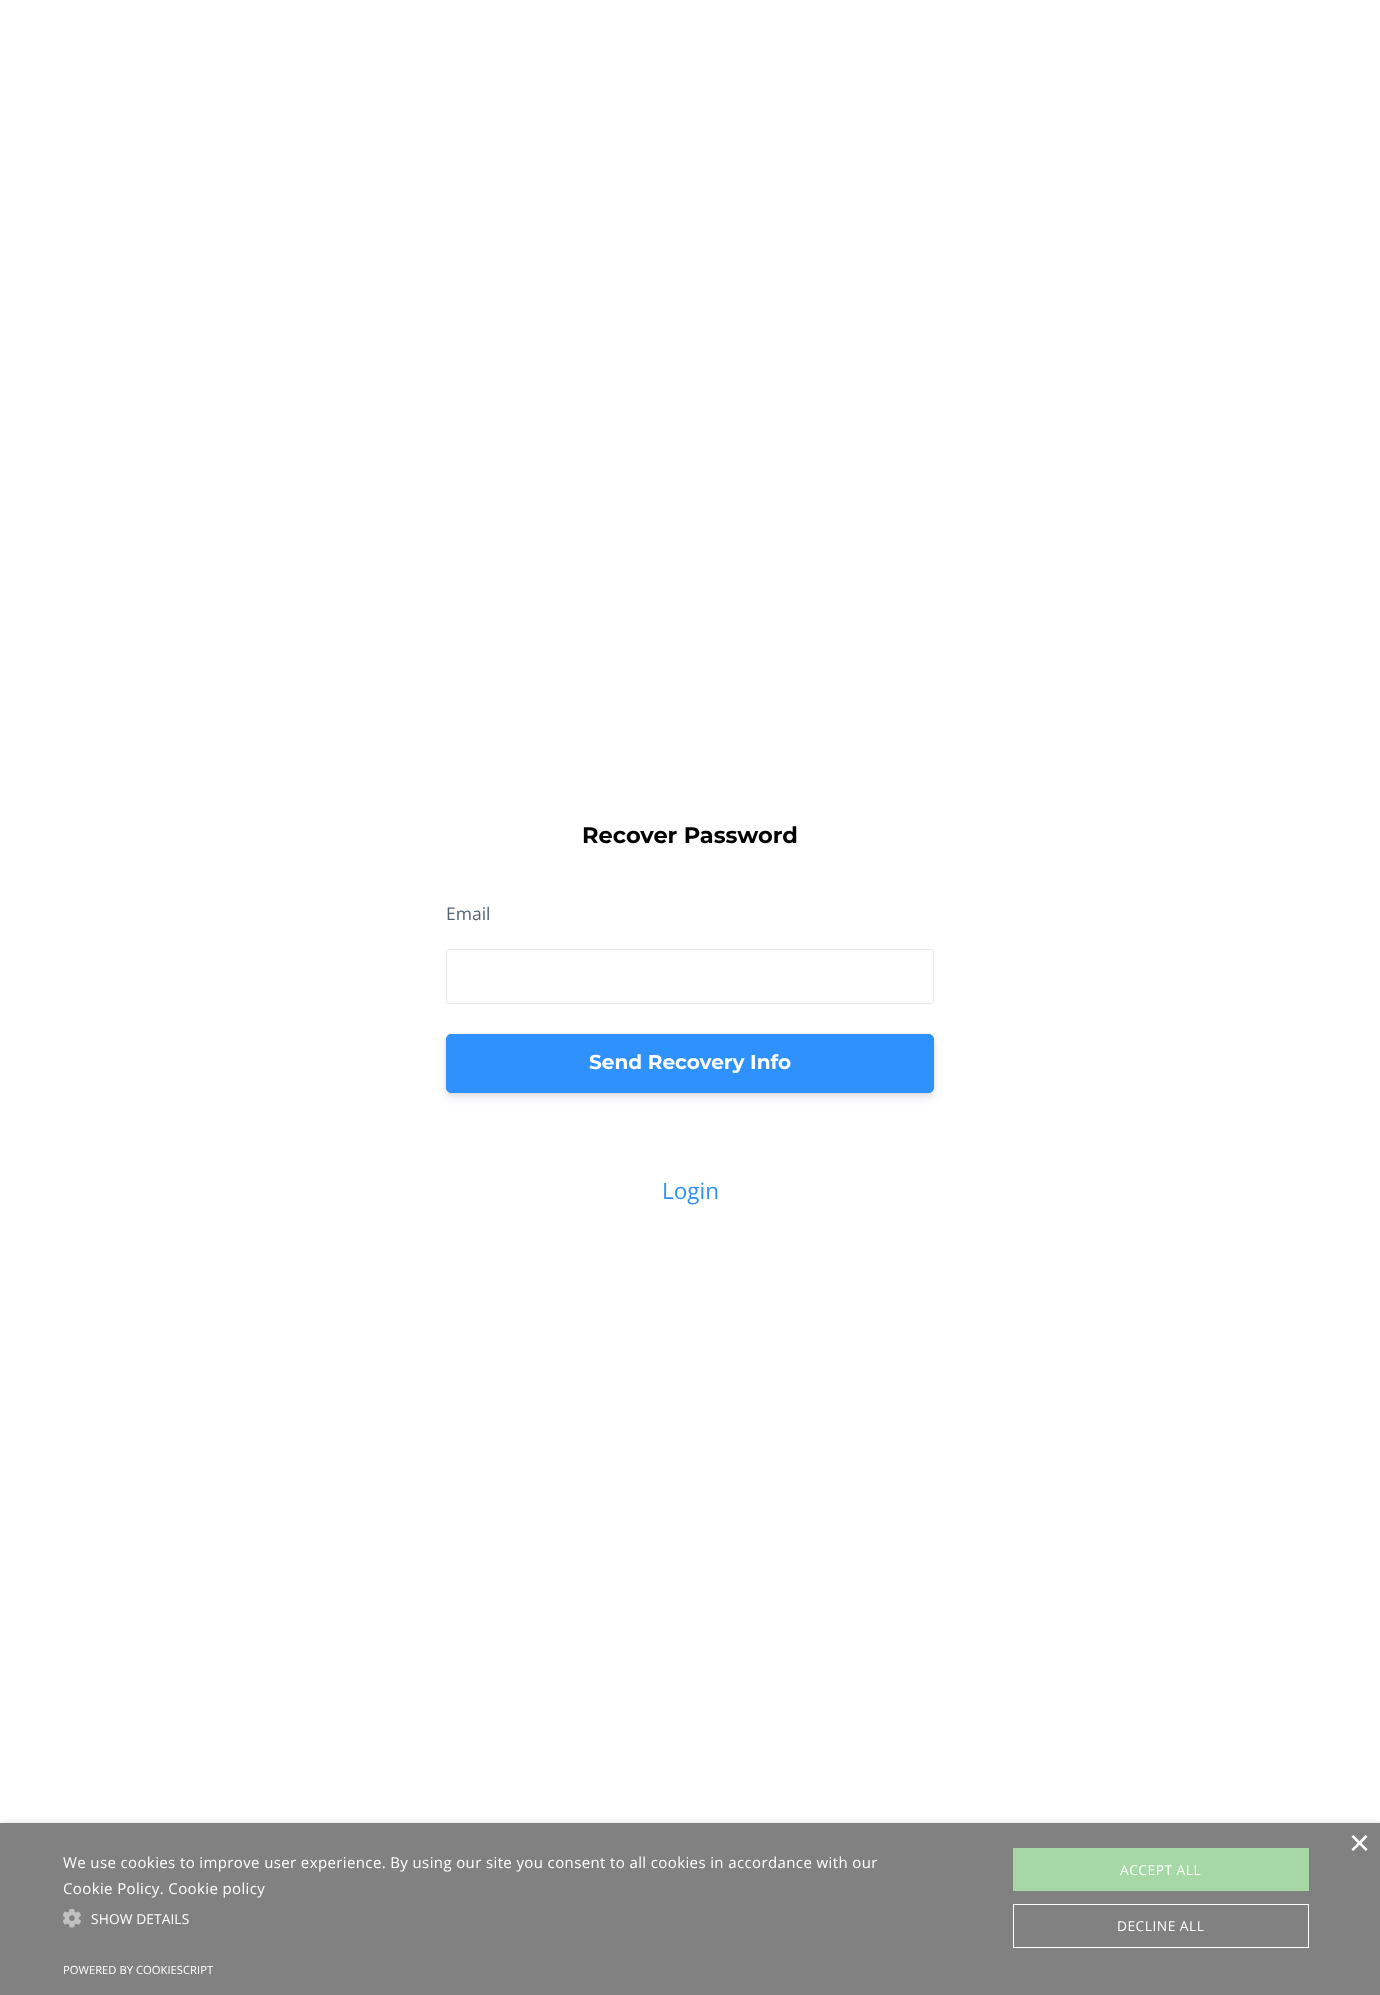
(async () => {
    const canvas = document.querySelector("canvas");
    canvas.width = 1380;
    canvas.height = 1995;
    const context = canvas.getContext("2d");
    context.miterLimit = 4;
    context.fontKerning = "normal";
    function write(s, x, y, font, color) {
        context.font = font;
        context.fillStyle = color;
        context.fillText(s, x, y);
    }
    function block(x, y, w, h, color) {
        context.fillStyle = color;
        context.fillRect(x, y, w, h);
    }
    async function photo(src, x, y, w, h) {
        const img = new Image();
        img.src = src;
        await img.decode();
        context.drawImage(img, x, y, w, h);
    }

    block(0, 0, 1380, 1995, "rgb(255, 255, 255)");
    write("Recover Password", 582, 843, "bold 22.5px Montserrat", "rgb(0, 0, 0)");
    write("Email", 446, 920, "17.5px Open Sans", "rgb(85, 99, 111)");
    context.beginPath();
    context.roundRect(446.5, 949.5, 487, 54, 2);
    context.strokeStyle = "rgb(230, 233, 236)";
    context.stroke();
    context.fillStyle = "rgba(0, 0, 0, 0.08)";
    context.filter = "blur(2px)";
    context.beginPath();
    context.roundRect(446, 1035, 488, 59, 5);
    context.fill();
    context.filter = "none";
    context.fillStyle = "rgba(50, 50, 93, 0.11)";
    context.filter = "blur(4px)";
    context.beginPath();
    context.roundRect(446, 1039, 488, 59, 5);
    context.fill();
    context.filter = "none";
    context.fillStyle = "rgb(46, 145, 252)";
    context.beginPath();
    context.roundRect(446.5, 1034.5, 487, 58, 4.5);
    context.fill();
    context.strokeStyle = "rgb(46, 145, 252)";
    context.stroke();
    write("Send Recovery Info", 589, 1069, "bold 20px Montserrat", "rgb(255, 255, 255)");
    write("Login", 662, 1199, "22.5px Open Sans", "rgb(46, 145, 252)");
    context.fillStyle = "rgba(102, 102, 102, 0.35)";
    context.filter = "blur(5px)";
    context.beginPath();
    context.rect(1, 1825, 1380, 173);
    context.fill();
    context.filter = "none";
    block(0, 1823, 1380, 172, "rgb(129, 129, 129)");
    write("×", 1349, 1855, "36px Liberation Sans", "rgb(255, 255, 255)");
    context.letterSpacing = "0.38px";
    write("We use cookies to improve user experience. By using our site you consent to all cookies in accordance with our", 63, 1868, "15px Open Sans", "rgb(255, 255, 255)");
    write("Cookie Policy. Cookie policy", 63, 1894, "15px Open Sans", "rgb(255, 255, 255)");
    await photo("media/1.png", 63, 1909, 18, 19);
    context.letterSpacing = "0.1px";
    write("SHOW DETAILS", 91, 1924, "13.75px Open Sans", "rgb(255, 255, 255)");
    block(1013, 1848, 296, 43, "rgb(166, 216, 166)");
    context.letterSpacing = "0.5px";
    write("ACCEPT ALL", 1120, 1875, "13.75px Open Sans", "rgb(255, 255, 255)");
    context.strokeStyle = "rgb(255, 255, 255)";
    context.strokeRect(1013.5, 1904.5, 295, 43);
    write("DECLINE ALL", 1117, 1931, "13.75px Open Sans", "rgb(255, 255, 255)");
    context.letterSpacing = "0px";
    write("POWERED BY COOKIESCRIPT", 63, 1974, "11.25px Open Sans", "rgb(255, 255, 255)");
})();
